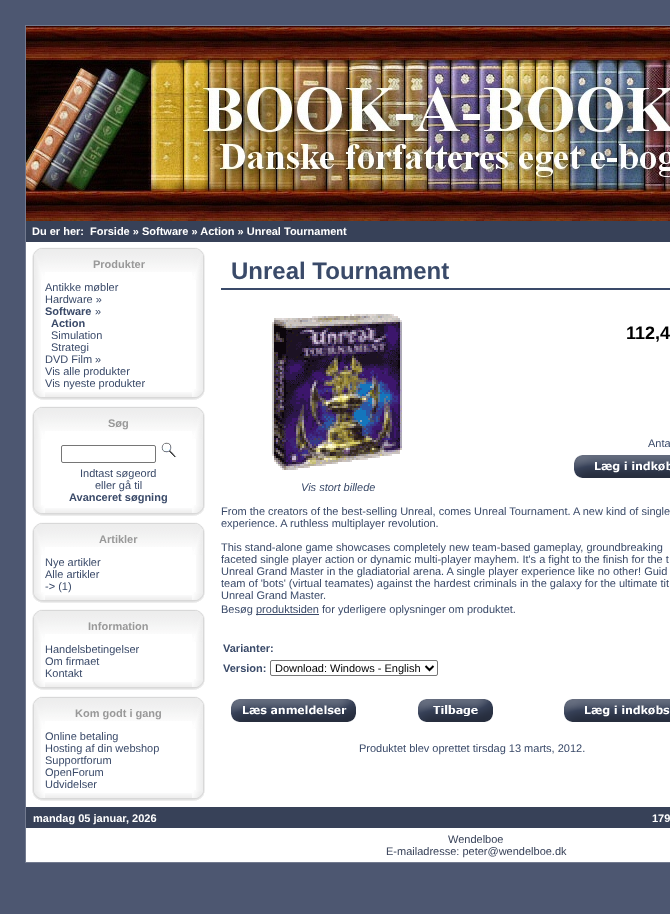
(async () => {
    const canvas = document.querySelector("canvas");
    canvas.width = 670;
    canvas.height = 914;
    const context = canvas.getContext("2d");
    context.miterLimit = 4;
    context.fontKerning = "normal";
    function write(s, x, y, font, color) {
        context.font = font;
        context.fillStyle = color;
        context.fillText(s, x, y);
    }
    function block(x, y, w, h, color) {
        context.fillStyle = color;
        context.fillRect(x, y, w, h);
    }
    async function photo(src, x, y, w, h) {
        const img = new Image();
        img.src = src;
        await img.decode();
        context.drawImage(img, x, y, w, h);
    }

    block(0, 0, 670, 914, "rgb(77, 87, 113)");
    block(26, 242, 644, 620, "rgb(255, 255, 255)");
    context.strokeStyle = "rgb(114, 122, 143)";
    context.strokeRect(25.5, 25.5, 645, 837);
    block(26, 221, 644, 21, "rgb(55, 65, 88)");
    await photo("media/1.png", 26, 26, 644, 195);
    write("Du er her:", 32, 235, "bold 11px Liberation Sans", "rgb(255, 255, 255)");
    write("Forside » Software » Action » Unreal Tournament", 90, 235, "bold 11px Liberation Sans", "rgb(255, 255, 255)");
    await photo("media/2.png", 32, 247, 13, 33);
    await photo("media/3.png", 45, 247, 147, 25);
    write("Produkter", 93, 268, "bold 11px Liberation Sans", "rgb(153, 153, 153)");
    await photo("media/4.png", 192, 247, 13, 33);
    await photo("media/5.png", 32, 280, 9, 109);
    write("Antikke møbler", 45, 291, "11px Liberation Sans", "rgb(58, 74, 105)");
    write("Hardware »", 45, 303, "11px Liberation Sans", "rgb(58, 74, 105)");
    write("Software", 45, 315, "bold 11px Liberation Sans", "rgb(58, 74, 105)");
    write("»", 95, 315, "11px Liberation Sans", "rgb(58, 74, 105)");
    write("Action", 51, 327, "bold 11px Liberation Sans", "rgb(58, 74, 105)");
    write("Simulation", 51, 339, "11px Liberation Sans", "rgb(58, 74, 105)");
    write("Strategi", 51, 351, "11px Liberation Sans", "rgb(58, 74, 105)");
    write("DVD Film »", 45, 363, "11px Liberation Sans", "rgb(58, 74, 105)");
    write("Vis alle produkter", 45, 375, "11px Liberation Sans", "rgb(58, 74, 105)");
    write("Vis nyeste produkter", 45, 387, "11px Liberation Sans", "rgb(58, 74, 105)");
    await photo("media/6.png", 196, 280, 9, 109);
    await photo("media/7.png", 32, 389, 13, 11);
    await photo("media/8.png", 45, 392, 147, 8);
    await photo("media/9.png", 192, 389, 13, 11);
    await photo("media/2.png", 32, 406, 13, 33);
    await photo("media/3.png", 45, 406, 147, 25);
    write("Søg", 108, 427, "bold 11px Liberation Sans", "rgb(153, 153, 153)");
    await photo("media/4.png", 192, 406, 13, 33);
    await photo("media/10.png", 32, 439, 9, 66);
    context.beginPath();
    context.roundRect(61.5, 445.5, 94, 17, 1.5);
    context.strokeStyle = "rgb(118, 118, 118)";
    context.stroke();
    await photo("media/11.png", 161, 442, 16, 16);
    write("Indtast søgeord", 80, 477, "11px Liberation Sans", "rgb(58, 74, 105)");
    write("eller gå til", 95, 489, "11px Liberation Sans", "rgb(58, 74, 105)");
    write("Avanceret søgning", 69, 501, "bold 11px Liberation Sans", "rgb(58, 74, 105)");
    await photo("media/12.png", 196, 439, 9, 66);
    await photo("media/7.png", 32, 505, 13, 11);
    await photo("media/8.png", 45, 508, 147, 8);
    await photo("media/9.png", 192, 505, 13, 11);
    await photo("media/2.png", 32, 522, 13, 33);
    await photo("media/3.png", 45, 522, 147, 25);
    write("Artikler", 99, 543, "bold 11px Liberation Sans", "rgb(153, 153, 153)");
    await photo("media/4.png", 192, 522, 13, 33);
    await photo("media/13.png", 32, 555, 9, 37);
    write("Nye artikler", 45, 566, "11px Liberation Sans", "rgb(58, 74, 105)");
    write("Alle artikler", 45, 578, "11px Liberation Sans", "rgb(58, 74, 105)");
    write("-> (1)", 45, 590, "11px Liberation Sans", "rgb(58, 74, 105)");
    await photo("media/14.png", 196, 555, 9, 37);
    await photo("media/7.png", 32, 592, 13, 11);
    await photo("media/8.png", 45, 595, 147, 8);
    await photo("media/9.png", 192, 592, 13, 11);
    await photo("media/2.png", 32, 609, 13, 33);
    await photo("media/3.png", 45, 609, 147, 25);
    write("Information", 88, 630, "bold 11px Liberation Sans", "rgb(153, 153, 153)");
    await photo("media/4.png", 192, 609, 13, 33);
    await photo("media/13.png", 32, 642, 9, 37);
    write("Handelsbetingelser", 45, 653, "11px Liberation Sans", "rgb(58, 74, 105)");
    write("Om firmaet", 45, 665, "11px Liberation Sans", "rgb(58, 74, 105)");
    write("Kontakt", 45, 677, "11px Liberation Sans", "rgb(58, 74, 105)");
    await photo("media/14.png", 196, 642, 9, 37);
    await photo("media/7.png", 32, 679, 13, 11);
    await photo("media/8.png", 45, 682, 147, 8);
    await photo("media/9.png", 192, 679, 13, 11);
    await photo("media/2.png", 32, 696, 13, 33);
    await photo("media/3.png", 45, 696, 147, 25);
    write("Kom godt i gang", 75, 717, "bold 11px Liberation Sans", "rgb(153, 153, 153)");
    await photo("media/4.png", 192, 696, 13, 33);
    await photo("media/15.png", 32, 729, 9, 61);
    write("Online betaling", 45, 740, "11px Liberation Sans", "rgb(58, 74, 105)");
    write("Hosting af din webshop", 45, 752, "11px Liberation Sans", "rgb(58, 74, 105)");
    write("Supportforum", 45, 764, "11px Liberation Sans", "rgb(58, 74, 105)");
    write("OpenForum", 45, 776, "11px Liberation Sans", "rgb(58, 74, 105)");
    write("Udvidelser", 45, 788, "11px Liberation Sans", "rgb(58, 74, 105)");
    await photo("media/16.png", 196, 729, 9, 61);
    await photo("media/7.png", 32, 790, 13, 11);
    await photo("media/8.png", 45, 793, 147, 8);
    await photo("media/9.png", 192, 790, 13, 11);
    block(221, 288, 449, 2, "rgb(58, 74, 105)");
    write("Unreal Tournament", 231, 279, "bold 24px Liberation Sans", "rgb(58, 74, 105)");
    write("112,4", 626, 339, "bold 18px Liberation Sans", "rgb(0, 0, 0)");
    write("Anta", 648, 447, "11px Liberation Sans", "rgb(58, 74, 105)");
    await photo("media/17.png", 574, 455, 96, 23);
    await photo("media/18.png", 272, 314, 130, 156);
    write("Vis stort billede", 301, 491, "italic 11px Liberation Sans", "rgb(58, 74, 105)");
    write("From the creators of the best-selling Unreal, comes Unreal Tournament. A new kind of single", 221, 515, "11px Liberation Sans", "rgb(58, 74, 105)");
    write("experience. A ruthless multiplayer revolution.", 221, 527, "11px Liberation Sans", "rgb(58, 74, 105)");
    write("This stand-alone game showcases completely new team-based gameplay, groundbreaking", 221, 551, "11px Liberation Sans", "rgb(58, 74, 105)");
    write("faceted single player action or dynamic multi-player mayhem. It's a fight to the finish for the t", 221, 563, "11px Liberation Sans", "rgb(58, 74, 105)");
    write("Unreal Grand Master in the gladiatorial arena. A single player experience like no other! Guid", 221, 575, "11px Liberation Sans", "rgb(58, 74, 105)");
    write("team of 'bots' (virtual teamates) against the hardest criminals in the galaxy for the ultimate tit", 221, 587, "11px Liberation Sans", "rgb(58, 74, 105)");
    write("Unreal Grand Master.", 221, 599, "11px Liberation Sans", "rgb(58, 74, 105)");
    write("Besøg", 221, 613, "11px Liberation Sans", "rgb(58, 74, 105)");
    block(256, 614, 63, 1, "rgb(58, 74, 105)");
    write("produktsiden for yderligere oplysninger om produktet.", 256, 613, "11px Liberation Sans", "rgb(58, 74, 105)");
    write("Varianter:", 223, 652, "bold 11px Liberation Sans", "rgb(58, 74, 105)");
    write("Version:", 223, 672, "bold 11px Liberation Sans", "rgb(58, 74, 105)");
    context.beginPath();
    context.roundRect(270.5, 660.5, 167, 15, 1.5);
    context.stroke();
    context.beginPath();
    context.moveTo(425.5, 666);
    context.lineTo(429.5, 670);
    context.lineTo(433.5, 666);
    context.strokeStyle = "rgb(0, 0, 0)";
    context.lineWidth = 2;
    context.stroke();
    write("Download: Windows - English", 275, 672, "11px Liberation Sans", "rgb(0, 0, 0)");
    await photo("media/19.png", 231, 699, 125, 23);
    await photo("media/20.png", 418, 699, 75, 23);
    await photo("media/21.png", 564, 699, 106, 23);
    write("Produktet blev oprettet tirsdag 13 marts, 2012.", 359, 752, "11px Liberation Sans", "rgb(58, 74, 105)");
    block(26, 807, 644, 21, "rgb(55, 65, 88)");
    write("mandag 05 januar, 2026", 33, 822, "bold 11px Liberation Sans", "rgb(255, 255, 255)");
    write("179", 652, 822, "bold 11px Liberation Sans", "rgb(255, 255, 255)");
    write("Wendelboe", 448, 843, "11px Liberation Sans", "rgb(55, 65, 88)");
    write("E-mailadresse: peter@wendelboe.dk", 386, 855, "11px Liberation Sans", "rgb(55, 65, 88)");
})();
